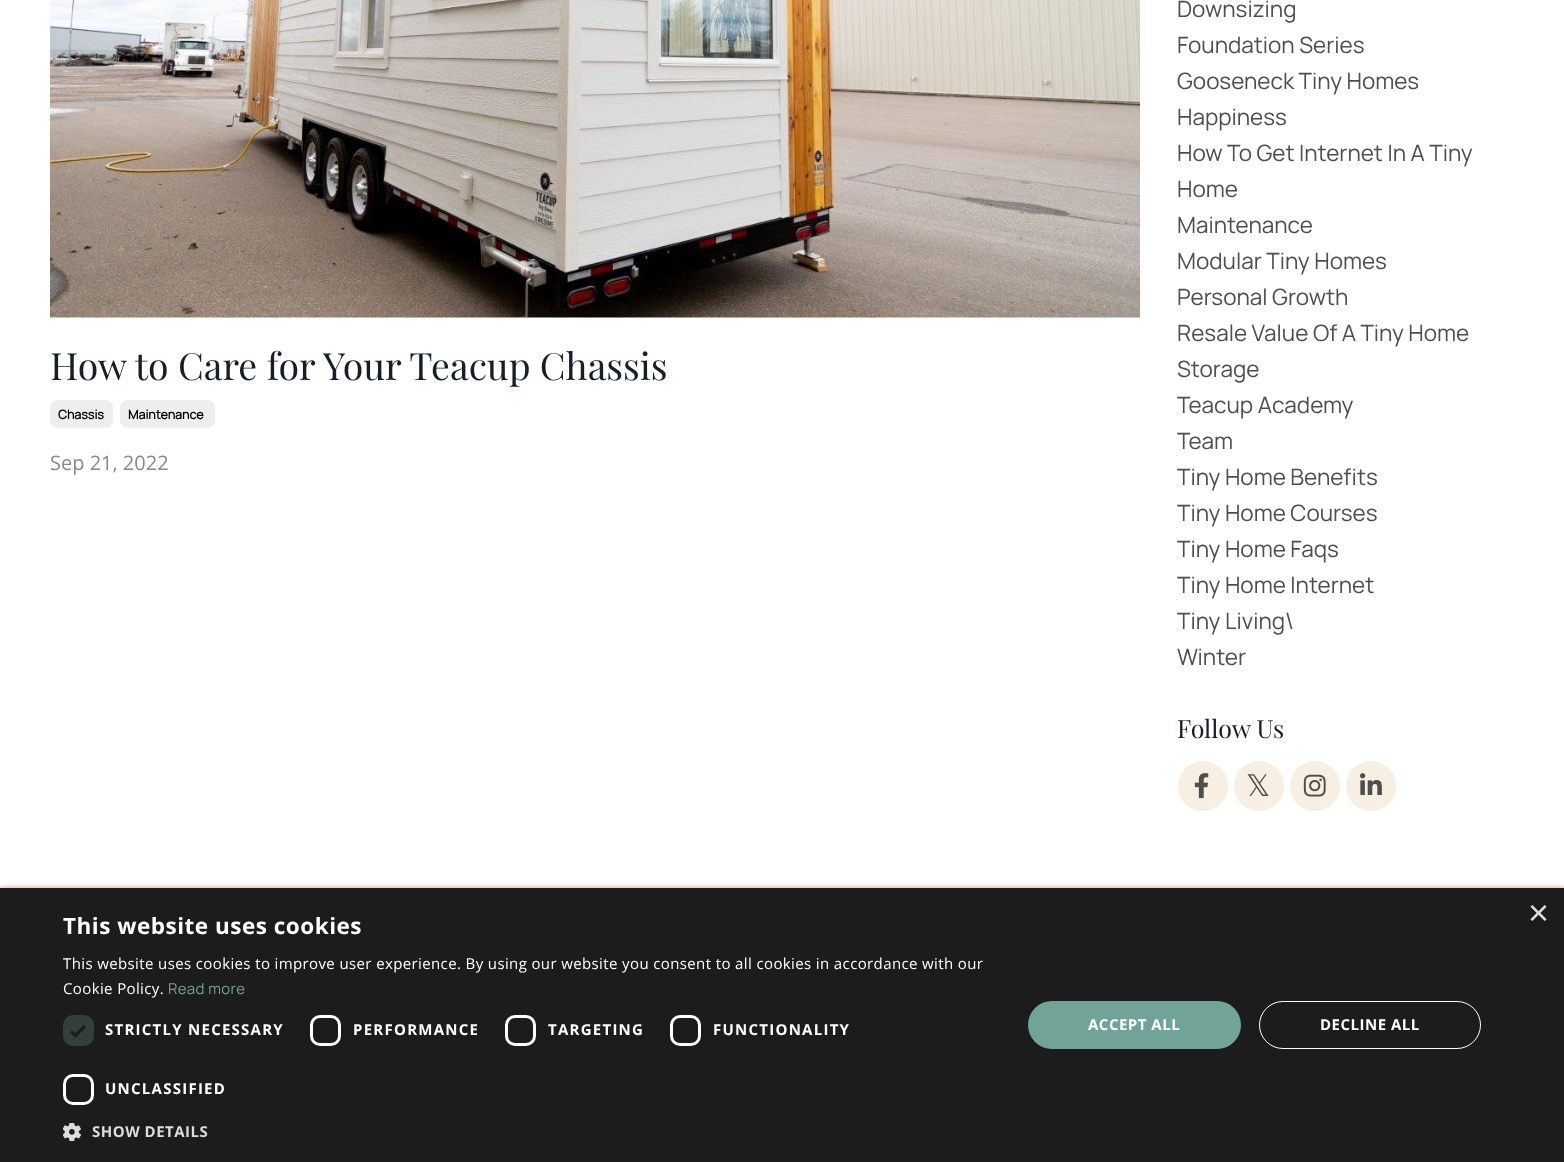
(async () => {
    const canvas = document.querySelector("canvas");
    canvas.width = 1564;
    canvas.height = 1162;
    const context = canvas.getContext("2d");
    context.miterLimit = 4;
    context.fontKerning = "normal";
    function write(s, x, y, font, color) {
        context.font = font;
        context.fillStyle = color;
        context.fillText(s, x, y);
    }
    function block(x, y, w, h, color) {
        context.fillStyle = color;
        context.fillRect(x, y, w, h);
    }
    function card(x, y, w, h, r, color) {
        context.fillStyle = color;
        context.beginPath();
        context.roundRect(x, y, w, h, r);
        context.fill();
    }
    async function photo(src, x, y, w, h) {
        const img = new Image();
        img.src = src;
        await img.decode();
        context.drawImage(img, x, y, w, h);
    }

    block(0, 0, 1564, 1162, "rgb(255, 255, 255)");
    await photo("media/1.png", 50, 0, 1090, 318);
    write("How to Care for Your Teacup Chassis", 50, 380, "37.5px Playfair Display", "rgb(22, 30, 42)");
    card(50, 400, 63, 28, 8, "rgb(238, 238, 238)");
    write("Chassis", 58, 419, "bold 12.5px Manrope", "rgb(0, 0, 0)");
    card(120, 400, 95, 28, 8, "rgb(238, 238, 238)");
    write("Maintenance", 128, 419, "bold 12.5px Manrope", "rgb(0, 0, 0)");
    write("Sep 21, 2022", 50, 470, "20px Open Sans", "rgb(136, 136, 136)");
    write("Downsizing", 1177, 17, "22.5px Manrope", "rgb(78, 78, 78)");
    write("Foundation Series", 1177, 53, "22.5px Manrope", "rgb(78, 78, 78)");
    write("Gooseneck Tiny Homes", 1177, 89, "22.5px Manrope", "rgb(78, 78, 78)");
    write("Happiness", 1177, 125, "22.5px Manrope", "rgb(78, 78, 78)");
    write("How To Get Internet In A Tiny", 1177, 161, "22.5px Manrope", "rgb(78, 78, 78)");
    write("Home", 1177, 197, "22.5px Manrope", "rgb(78, 78, 78)");
    write("Maintenance", 1177, 233, "22.5px Manrope", "rgb(78, 78, 78)");
    write("Modular Tiny Homes", 1177, 269, "22.5px Manrope", "rgb(78, 78, 78)");
    write("Personal Growth", 1177, 305, "22.5px Manrope", "rgb(78, 78, 78)");
    write("Resale Value Of A Tiny Home", 1177, 341, "22.5px Manrope", "rgb(78, 78, 78)");
    write("Storage", 1177, 377, "22.5px Manrope", "rgb(78, 78, 78)");
    write("Teacup Academy", 1177, 413, "22.5px Manrope", "rgb(78, 78, 78)");
    write("Team", 1177, 449, "22.5px Manrope", "rgb(78, 78, 78)");
    write("Tiny Home Benefits", 1177, 485, "22.5px Manrope", "rgb(78, 78, 78)");
    write("Tiny Home Courses", 1177, 521, "22.5px Manrope", "rgb(78, 78, 78)");
    write("Tiny Home Faqs", 1177, 557, "22.5px Manrope", "rgb(78, 78, 78)");
    write("Tiny Home Internet", 1177, 593, "22.5px Manrope", "rgb(78, 78, 78)");
    write("Tiny Living\\", 1177, 629, "22.5px Manrope", "rgb(78, 78, 78)");
    write("Winter", 1177, 665, "22.5px Manrope", "rgb(78, 78, 78)");
    write("Follow Us", 1177, 738, "25px Playfair Display", "rgb(22, 30, 42)");
    context.fillStyle = "rgb(247, 240, 226)";
    context.beginPath();
    context.arc(1203, 786, 25, 0, Math.PI * 2);
    context.fill();
    await photo("media/2.png", 1194, 773, 15, 26);
    context.beginPath();
    context.arc(1259, 786, 25, 0, Math.PI * 2);
    context.fill();
    write("𝕏", 1246, 796, "30px DejaVu Sans", "rgb(78, 78, 78)");
    context.fillStyle = "rgb(247, 240, 226)";
    context.beginPath();
    context.arc(1315, 786, 25, 0, Math.PI * 2);
    context.fill();
    await photo("media/3.png", 1303, 774, 23, 23);
    context.beginPath();
    context.arc(1371, 786, 25, 0, Math.PI * 2);
    context.fill();
    await photo("media/4.png", 1360, 773, 22, 22);
    block(0, 886, 1564, 2, "rgb(247, 240, 226)");
    context.fillStyle = "rgba(0, 0, 0, 0.35)";
    context.filter = "blur(5px)";
    context.beginPath();
    context.rect(1, 890, 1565, 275);
    context.fill();
    context.filter = "none";
    block(0, 888, 1564, 274, "rgb(28, 28, 28)");
    write("×", 1528, 925, "36px Liberation Sans", "rgb(221, 221, 221)");
    context.letterSpacing = "0.5px";
    write("This website uses cookies", 63, 934, "bold 22.5px Open Sans", "rgb(255, 255, 255)");
    context.letterSpacing = "0.38px";
    write("This website uses cookies to improve user experience. By using our website you consent to all cookies in accordance with our", 63, 969, "15px Open Sans", "rgb(255, 255, 255)");
    write("Cookie Policy.", 63, 994, "15px Open Sans", "rgb(255, 255, 255)");
    write("Read more", 168, 994, "15px Manrope", "rgb(113, 163, 153)");
    card(63, 1015, 31, 31, 10, "rgb(50, 63, 61)");
    context.beginPath();
    context.moveTo(71, 1031.5);
    context.lineTo(75.5, 1035.5);
    context.lineTo(85, 1026);
    context.strokeStyle = "rgb(28, 28, 28)";
    context.lineWidth = 3.3;
    context.stroke();
    context.letterSpacing = "1.25px";
    write("STRICTLY NECESSARY", 105, 1035, "bold 15px Open Sans", "rgb(255, 255, 255)");
    context.beginPath();
    context.roundRect(311.5, 1016.5, 28, 28, 8.5);
    context.strokeStyle = "rgb(255, 255, 255)";
    context.lineWidth = 3;
    context.stroke();
    write("PERFORMANCE", 353, 1035, "bold 15px Open Sans", "rgb(255, 255, 255)");
    context.beginPath();
    context.roundRect(506.5, 1016.5, 28, 28, 8.5);
    context.stroke();
    write("TARGETING", 548, 1035, "bold 15px Open Sans", "rgb(255, 255, 255)");
    context.beginPath();
    context.roundRect(671.5, 1016.5, 28, 28, 8.5);
    context.stroke();
    write("FUNCTIONALITY", 713, 1035, "bold 15px Open Sans", "rgb(255, 255, 255)");
    context.beginPath();
    context.roundRect(64.5, 1075.5, 28, 28, 8.5);
    context.stroke();
    write("UNCLASSIFIED", 105, 1094, "bold 15px Open Sans", "rgb(255, 255, 255)");
    await photo("media/5.png", 63, 1123, 18, 18);
    context.letterSpacing = "0.5px";
    write("SHOW DETAILS", 92, 1137, "bold 15px Open Sans", "rgb(221, 221, 221)");
    card(1028, 1001, 213, 48, 24, "rgb(113, 163, 153)");
    write("ACCEPT ALL", 1088, 1030, "bold 15px Open Sans", "rgb(255, 255, 255)");
    context.beginPath();
    context.roundRect(1259.5, 1001.5, 221, 47, 23.5);
    context.lineWidth = 1;
    context.stroke();
    write("DECLINE ALL", 1320, 1030, "bold 15px Open Sans", "rgb(255, 255, 255)");
})();
